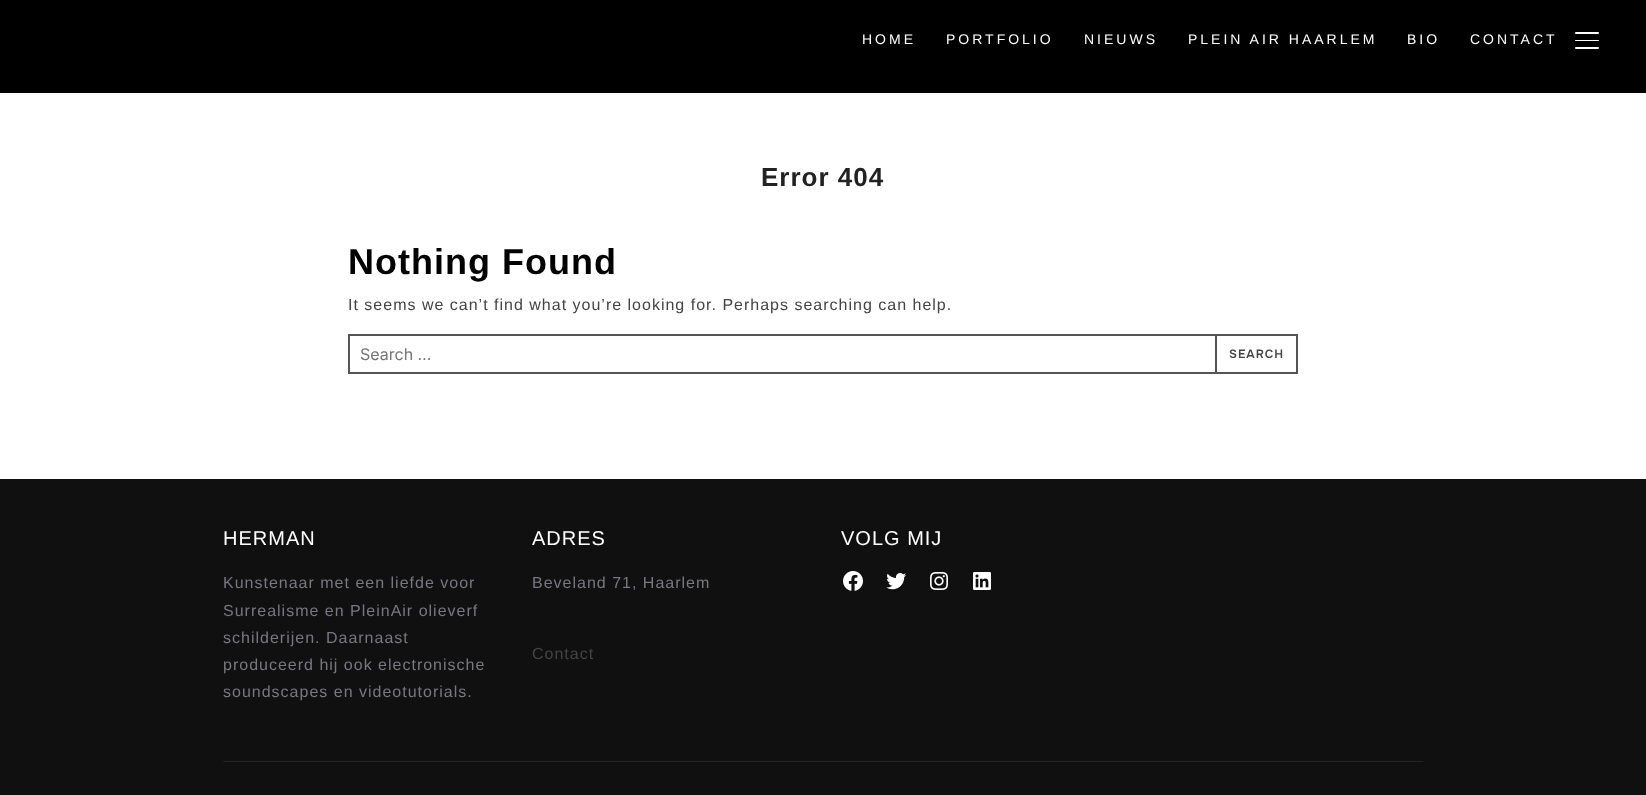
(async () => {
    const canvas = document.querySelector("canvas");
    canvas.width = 1646;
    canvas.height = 795;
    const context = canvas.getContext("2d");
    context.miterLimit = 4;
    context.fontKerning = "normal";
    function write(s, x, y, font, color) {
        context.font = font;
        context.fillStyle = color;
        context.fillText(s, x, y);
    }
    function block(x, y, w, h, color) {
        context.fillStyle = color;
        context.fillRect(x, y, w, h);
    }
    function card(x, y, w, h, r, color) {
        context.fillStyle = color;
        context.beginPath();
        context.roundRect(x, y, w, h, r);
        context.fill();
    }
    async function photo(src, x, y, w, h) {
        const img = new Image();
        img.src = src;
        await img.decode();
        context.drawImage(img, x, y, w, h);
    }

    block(0, 0, 1646, 795, "rgb(255, 255, 255)");
    block(0, 0, 1646, 93, "rgb(0, 0, 0)");
    context.letterSpacing = "3px";
    write("HOME", 862, 44, "14px Liberation Sans", "rgb(255, 255, 255)");
    write("PORTFOLIO", 946, 44, "14px Liberation Sans", "rgb(255, 255, 255)");
    write("NIEUWS", 1084, 44, "14px Liberation Sans", "rgb(255, 255, 255)");
    write("PLEIN AIR HAARLEM", 1188, 44, "14px Liberation Sans", "rgb(255, 255, 255)");
    write("BIO", 1407, 44, "14px Liberation Sans", "rgb(255, 255, 255)");
    write("CONTACT", 1470, 44, "14px Liberation Sans", "rgb(255, 255, 255)");
    card(1575, 32, 24, 2, 1, "rgb(255, 255, 255)");
    card(1575, 40, 24, 1, 0.5, "rgb(255, 255, 255)");
    card(1575, 47, 24, 2, 1, "rgb(255, 255, 255)");
    context.letterSpacing = "1px";
    write("Error 404", 761, 186, "bold 26px Liberation Sans", "rgb(34, 34, 34)");
    write("Nothing Found", 348, 274, "bold 36px Liberation Sans", "rgb(0, 0, 0)");
    write("It seems we can’t find what you’re looking for. Perhaps searching can help.", 348, 310, "16px Liberation Sans", "rgb(68, 68, 68)");
    context.strokeStyle = "rgb(86, 85, 85)";
    context.lineWidth = 2;
    context.strokeRect(349, 335, 948, 38);
    context.letterSpacing = "0px";
    write("Search …", 360, 360, "16px Inter", "rgb(117, 117, 117)");
    context.strokeRect(1216, 335, 81, 38);
    context.letterSpacing = "1px";
    write("SEARCH", 1229, 358, "600 12px Onest", "rgb(68, 68, 68)");
    block(0, 479, 1646, 316, "rgb(16, 16, 16)");
    write("HERMAN", 223, 545, "20px Liberation Sans", "rgb(255, 255, 255)");
    write("Kunstenaar met een liefde voor", 223, 588, "16px Liberation Sans", "rgb(120, 120, 127)");
    write("Surrealisme en PleinAir olieverf", 223, 616, "16px Liberation Sans", "rgb(120, 120, 127)");
    write("schilderijen. Daarnaast", 223, 643, "16px Liberation Sans", "rgb(120, 120, 127)");
    write("produceerd hij ook electronische", 223, 670, "16px Liberation Sans", "rgb(120, 120, 127)");
    write("soundscapes en videotutorials.", 223, 697, "16px Liberation Sans", "rgb(120, 120, 127)");
    write("ADRES", 532, 545, "20px Liberation Sans", "rgb(255, 255, 255)");
    write("Beveland 71, Haarlem", 532, 588, "16px Liberation Sans", "rgb(120, 120, 127)");
    write("Contact", 532, 659, "16px Liberation Sans", "rgb(68, 68, 68)");
    write("VOLG MIJ", 841, 545, "20px Liberation Sans", "rgb(255, 255, 255)");
    await photo("media/1.png", 843, 571, 20, 20);
    await photo("media/2.png", 886, 573, 20, 17);
    await photo("media/3.png", 930, 572, 18, 18);
    await photo("media/4.png", 973, 572, 18, 18);
    block(223, 761, 1200, 1, "rgb(35, 35, 35)");
})();
